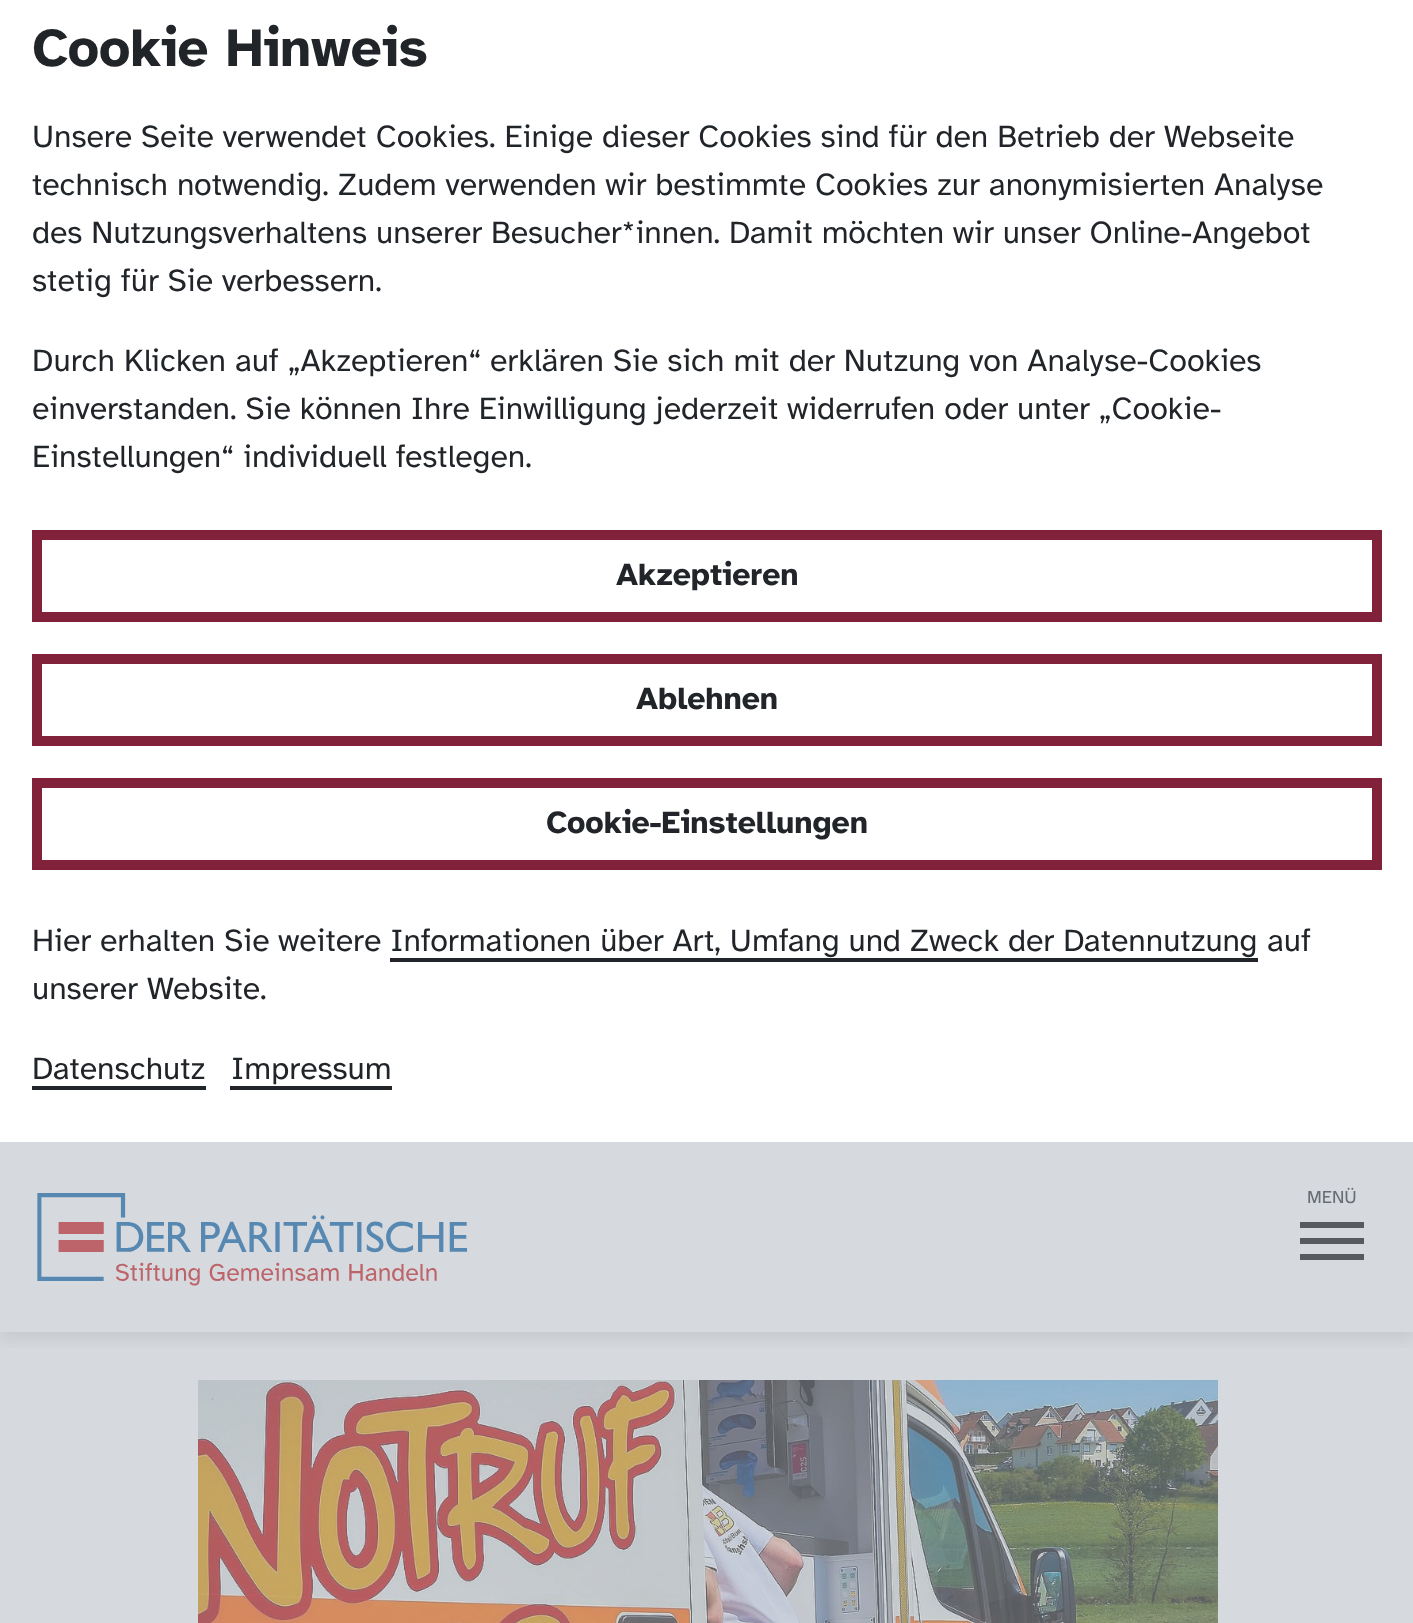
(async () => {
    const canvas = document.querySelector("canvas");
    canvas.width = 1413;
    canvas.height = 1623;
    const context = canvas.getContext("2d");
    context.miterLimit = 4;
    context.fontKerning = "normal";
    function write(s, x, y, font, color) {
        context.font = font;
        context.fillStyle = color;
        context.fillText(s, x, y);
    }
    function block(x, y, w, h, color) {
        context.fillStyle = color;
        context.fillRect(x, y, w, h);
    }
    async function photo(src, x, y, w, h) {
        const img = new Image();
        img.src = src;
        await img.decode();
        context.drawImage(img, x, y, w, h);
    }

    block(0, 0, 1413, 1623, "rgb(214, 218, 222)");
    context.save();
    context.beginPath();
    context.rect(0, 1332, 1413, 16);
    context.clip();
    context.fillStyle = "rgba(87, 91, 95, 0.12)";
    context.filter = "blur(8px)";
    context.beginPath();
    context.rect(0, 1150, 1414, 190);
    context.fill();
    context.filter = "none";
    context.restore();
    block(0, 0, 1413, 1142, "rgba(255, 255, 255, 0.99)");
    write("Cookie Hinweis", 32, 66, "bold 54.5px Atkinson Hyperlegible", "rgb(33, 37, 41)");
    write("Unsere Seite verwendet Cookies. Einige dieser Cookies sind für den Betrieb der Webseite", 32, 147, "32px Atkinson Hyperlegible", "rgb(33, 37, 41)");
    write("technisch notwendig. Zudem verwenden wir bestimmte Cookies zur anonymisierten Analyse", 32, 195, "32px Atkinson Hyperlegible", "rgb(33, 37, 41)");
    write("des Nutzungsverhaltens unserer Besucher*innen. Damit möchten wir unser Online-Angebot", 32, 243, "32px Atkinson Hyperlegible", "rgb(33, 37, 41)");
    write("stetig für Sie verbessern.", 32, 291, "32px Atkinson Hyperlegible", "rgb(33, 37, 41)");
    write("Durch Klicken auf „Akzeptieren“ erklären Sie sich mit der Nutzung von Analyse-Cookies", 32, 371, "32px Atkinson Hyperlegible", "rgb(33, 37, 41)");
    write("einverstanden. Sie können Ihre Einwilligung jederzeit widerrufen oder unter „Cookie-", 32, 419, "32px Atkinson Hyperlegible", "rgb(33, 37, 41)");
    write("Einstellungen“ individuell festlegen.", 32, 467, "32px Atkinson Hyperlegible", "rgb(33, 37, 41)");
    context.strokeStyle = "rgb(130, 33, 58)";
    context.lineWidth = 10;
    context.strokeRect(37, 535, 1340, 82);
    write("Akzeptieren", 616, 585, "bold 32px Atkinson Hyperlegible", "rgb(33, 37, 41)");
    context.strokeRect(37, 659, 1340, 82);
    write("Ablehnen", 636, 709, "bold 32px Atkinson Hyperlegible", "rgb(33, 37, 41)");
    context.strokeRect(37, 783, 1340, 82);
    write("Cookie-Einstellungen", 546, 833, "bold 32px Atkinson Hyperlegible", "rgb(33, 37, 41)");
    write("Hier erhalten Sie weitere Informationen über Art, Umfang und Zweck der Datennutzung", 32, 951, "32px Atkinson Hyperlegible", "rgb(33, 37, 41)");
    write("auf", 1267, 951, "32px Atkinson Hyperlegible", "rgb(33, 37, 41)");
    block(390, 958, 868, 4, "rgb(33, 37, 41)");
    write("unserer Website.", 32, 999, "32px Atkinson Hyperlegible", "rgb(33, 37, 41)");
    write("Datenschutz", 32, 1079, "32px Atkinson Hyperlegible", "rgb(33, 37, 41)");
    block(32, 1086, 174, 4, "rgb(33, 37, 41)");
    write("Impressum", 231, 1079, "32px Atkinson Hyperlegible", "rgb(33, 37, 41)");
    block(230, 1086, 162, 4, "rgb(33, 37, 41)");
    await photo("media/1.png", 37, 1193, 431, 93);
    write("MENÜ", 1307, 1203, "18px Atkinson Hyperlegible", "rgb(103, 109, 115)");
    block(1300, 1222, 64, 6, "rgb(87, 91, 95)");
    block(1300, 1238, 64, 6, "rgb(87, 91, 95)");
    block(1300, 1254, 64, 6, "rgb(87, 91, 95)");
    await photo("media/2.png", 198, 1380, 1020, 243);
})();
